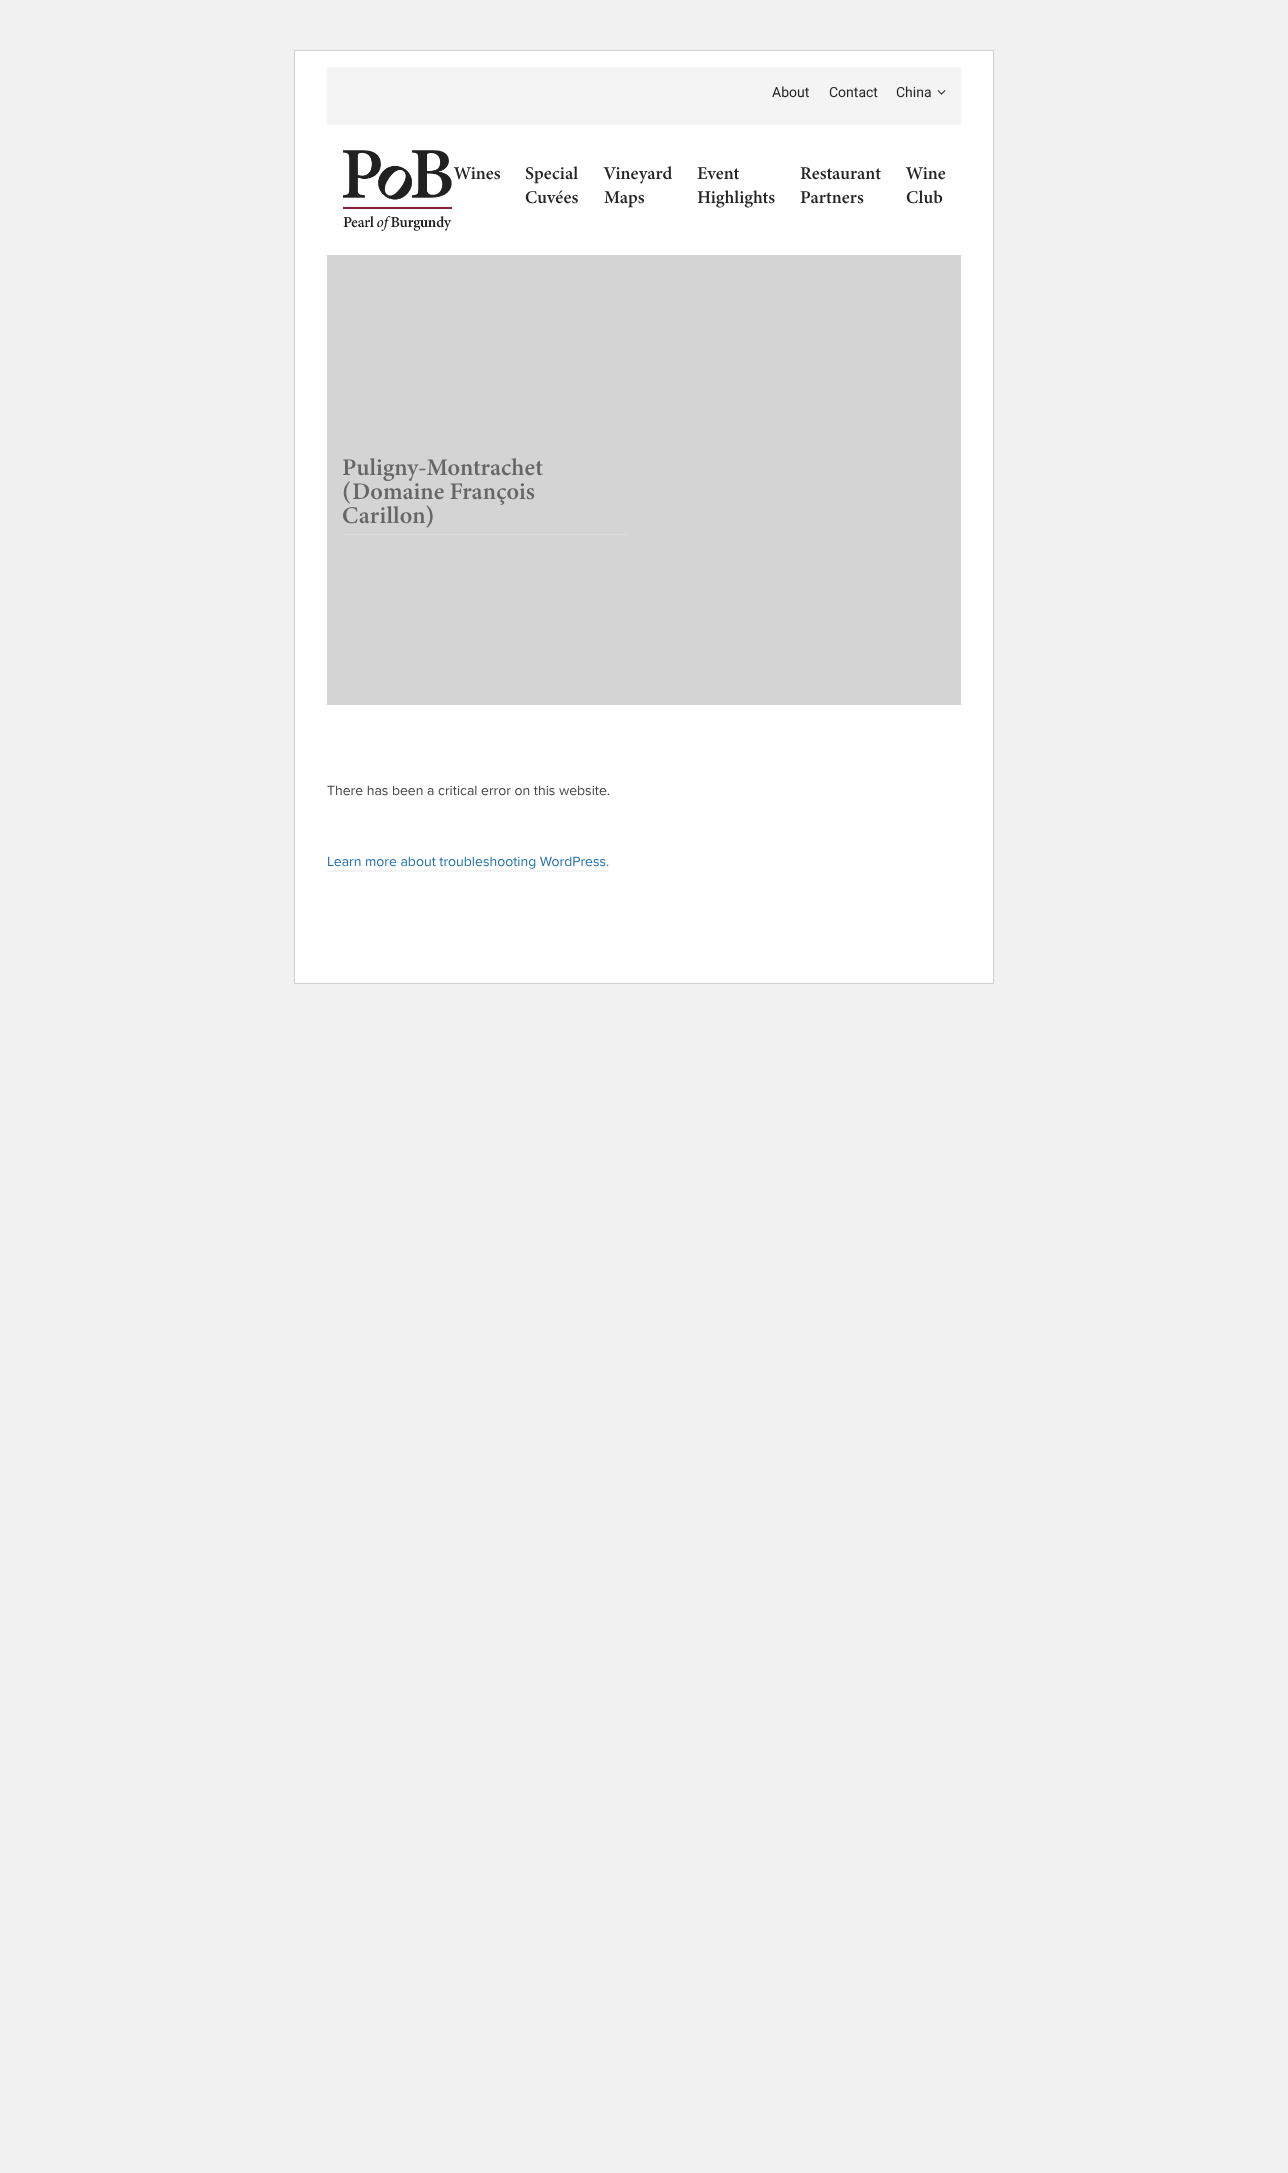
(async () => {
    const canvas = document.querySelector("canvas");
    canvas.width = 1288;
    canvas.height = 2173;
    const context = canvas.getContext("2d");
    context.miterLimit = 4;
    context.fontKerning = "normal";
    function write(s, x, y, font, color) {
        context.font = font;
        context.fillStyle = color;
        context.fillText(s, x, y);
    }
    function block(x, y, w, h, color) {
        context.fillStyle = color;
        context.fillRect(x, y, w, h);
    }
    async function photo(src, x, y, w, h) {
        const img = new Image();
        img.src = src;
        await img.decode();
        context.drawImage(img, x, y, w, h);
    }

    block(0, 0, 1288, 2173, "rgb(241, 241, 241)");
    context.fillStyle = "rgb(255, 255, 255)";
    context.beginPath();
    context.rect(294.5, 50.5, 699, 933);
    context.fill();
    context.strokeStyle = "rgb(204, 208, 212)";
    context.stroke();
    block(327, 67, 634, 58, "rgb(244, 244, 244)");
    write("About", 772, 97, "14px Roboto", "rgb(38, 38, 38)");
    write("Contact", 829, 97, "14px Roboto", "rgb(38, 38, 38)");
    write("China", 896, 97, "14px Roboto", "rgb(38, 38, 38)");
    await photo("media/1.png", 937, 90, 9, 5);
    await photo("media/2.png", 342, 150, 110, 81);
    write("Wines", 454, 179, "600 18px 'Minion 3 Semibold'", "rgb(38, 38, 38)");
    write("Special", 525, 179, "600 18px 'Minion 3 Semibold'", "rgb(38, 38, 38)");
    write("Cuvées", 525, 203, "600 18px 'Minion 3 Semibold'", "rgb(38, 38, 38)");
    write("Vineyard", 604, 179, "600 18px 'Minion 3 Semibold'", "rgb(38, 38, 38)");
    write("Maps", 604, 203, "600 18px 'Minion 3 Semibold'", "rgb(38, 38, 38)");
    write("Event", 697, 179, "600 18px 'Minion 3 Semibold'", "rgb(38, 38, 38)");
    write("Highlights", 697, 203, "600 18px 'Minion 3 Semibold'", "rgb(38, 38, 38)");
    write("Restaurant", 800, 179, "600 18px 'Minion 3 Semibold'", "rgb(38, 38, 38)");
    write("Partners", 800, 203, "600 18px 'Minion 3 Semibold'", "rgb(38, 38, 38)");
    write("Wine", 906, 179, "600 18px 'Minion 3 Semibold'", "rgb(38, 38, 38)");
    write("Club", 906, 203, "600 18px 'Minion 3 Semibold'", "rgb(38, 38, 38)");
    block(327, 255, 634, 450, "rgb(212, 212, 212)");
    block(342, 534, 287, 1, "rgb(218, 218, 218)");
    write("Puligny-Montrachet", 342, 475, "600 24px 'Minion 3 Semibold'", "rgb(102, 102, 102)");
    write("(Domaine François", 342, 499, "600 24px 'Minion 3 Semibold'", "rgb(102, 102, 102)");
    write("Carillon)", 342, 523, "600 24px 'Minion 3 Semibold'", "rgb(102, 102, 102)");
    write("There has been a critical error on this website.", 327, 795, "14px Proxima Nova", "rgb(68, 68, 68)");
    write("Learn more about troubleshooting WordPress.", 327, 866, "14px Proxima Nova", "rgb(34, 113, 177)");
    block(327, 870, 282, 2, "rgb(244, 244, 244)");
})();
